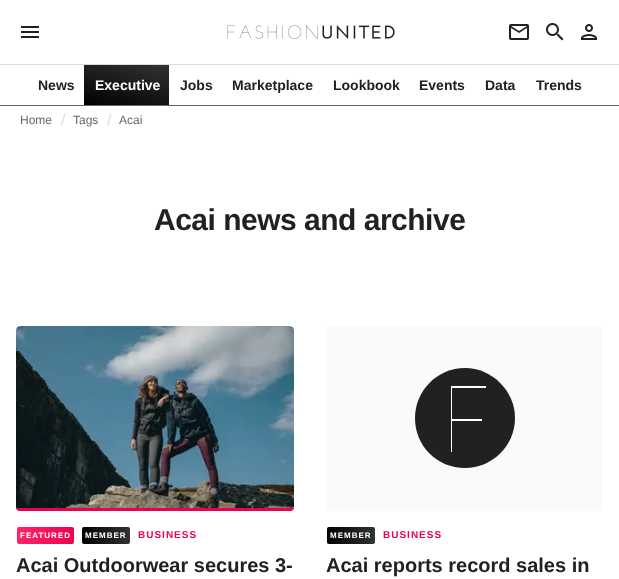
(async () => {
    const canvas = document.querySelector("canvas");
    canvas.width = 619;
    canvas.height = 579;
    const context = canvas.getContext("2d");
    context.miterLimit = 4;
    context.fontKerning = "normal";
    function write(s, x, y, font, color) {
        context.font = font;
        context.fillStyle = color;
        context.fillText(s, x, y);
    }
    function block(x, y, w, h, color) {
        context.fillStyle = color;
        context.fillRect(x, y, w, h);
    }
    function card(x, y, w, h, r, color) {
        context.fillStyle = color;
        context.beginPath();
        context.roundRect(x, y, w, h, r);
        context.fill();
    }
    async function photo(src, x, y, w, h) {
        const img = new Image();
        img.src = src;
        await img.decode();
        context.drawImage(img, x, y, w, h);
    }
    let gradient;

    block(0, 0, 619, 579, "rgb(255, 255, 255)");
    block(0, 64, 619, 1, "rgb(219, 219, 219)");
    await photo("media/1.png", 21, 26, 18, 12);
    await photo("media/2.png", 227, 25, 168, 14);
    await photo("media/3.png", 509, 24, 20, 16);
    await photo("media/4.png", 546, 23, 18, 18);
    await photo("media/5.png", 581, 24, 16, 16);
    block(0, 105, 619, 1, "rgb(102, 102, 102)");
    write("News", 38, 90, "bold 14px Liberation Sans", "rgb(33, 33, 33)");
    gradient = context.createLinearGradient(119, 114, 134, 56);
    gradient.addColorStop(0, "rgb(0, 0, 0)");
    gradient.addColorStop(1, "rgb(51, 51, 51)");
    context.fillStyle = gradient;
    context.fillRect(84, 65, 85, 40);
    write("Executive", 95, 90, "bold 14px Liberation Sans", "rgb(255, 255, 255)");
    write("Jobs", 180, 90, "bold 14px Liberation Sans", "rgb(33, 33, 33)");
    write("Marketplace", 232, 90, "bold 14px Liberation Sans", "rgb(33, 33, 33)");
    write("Lookbook", 333, 90, "bold 14px Liberation Sans", "rgb(33, 33, 33)");
    write("Events", 419, 90, "bold 14px Liberation Sans", "rgb(33, 33, 33)");
    write("Data", 485, 90, "bold 14px Liberation Sans", "rgb(33, 33, 33)");
    write("Trends", 536, 90, "bold 14px Liberation Sans", "rgb(33, 33, 33)");
    write("Home", 20, 124, "12px Liberation Sans", "rgb(102, 102, 102)");
    write("/", 61, 125, "16px Liberation Sans", "rgb(219, 219, 219)");
    write("Tags", 73, 124, "12px Liberation Sans", "rgb(102, 102, 102)");
    write("/", 107, 125, "16px Liberation Sans", "rgb(219, 219, 219)");
    write("Acai", 119, 124, "12px Liberation Sans", "rgb(102, 102, 102)");
    context.letterSpacing = "-0.5px";
    write("Acai news and archive", 154, 230, "bold 30px Liberation Sans", "rgb(33, 33, 33)");
    await photo("media/6.png", 16, 326, 278, 185);
    context.save();
    context.beginPath();
    context.roundRect(16, 326, 278, 185, 4);
    context.clip();
    block(16, 508, 278, 3, "rgb(234, 1, 81)");
    context.restore();
    gradient = context.createLinearGradient(17, 536, 74, 536);
    gradient.addColorStop(0, "rgb(255, 36, 104)");
    gradient.addColorStop(1, "rgb(234, 1, 81)");
    context.fillStyle = gradient;
    context.beginPath();
    context.roundRect(17, 527, 57, 17, 2);
    context.fill();
    context.letterSpacing = "1px";
    write("FEATURED", 20, 538, "bold 8px Liberation Sans", "rgb(255, 255, 255)");
    gradient = context.createLinearGradient(82, 536, 130, 536);
    gradient.addColorStop(0, "rgb(0, 0, 0)");
    gradient.addColorStop(1, "rgb(51, 51, 51)");
    context.fillStyle = gradient;
    context.beginPath();
    context.roundRect(82, 527, 48, 17, 2);
    context.fill();
    write("MEMBER", 85, 538, "bold 8px Liberation Sans", "rgb(255, 255, 255)");
    write("BUSINESS", 138, 538, "bold 10px Liberation Sans", "rgb(234, 1, 81)");
    context.letterSpacing = "0px";
    write("Acai Outdoorwear secures 3-", 16, 572, "bold 20px Liberation Sans", "rgb(33, 33, 33)");
    card(326, 326, 277, 185, 4, "rgb(250, 250, 250)");
    context.fillStyle = "rgb(33, 33, 33)";
    context.beginPath();
    context.moveTo(465, 468);
    context.bezierCurveTo(492, 468, 515, 446, 515, 418);
    context.bezierCurveTo(515, 391, 492, 368, 465, 368);
    context.bezierCurveTo(437, 368, 415, 391, 415, 418);
    context.bezierCurveTo(415, 446, 437, 468, 465, 468);
    context.closePath();
    context.fill();
    context.fillStyle = "rgb(255, 255, 255)";
    context.beginPath();
    context.moveTo(486, 386);
    context.lineTo(486, 388);
    context.lineTo(452, 388);
    context.lineTo(452, 419);
    context.lineTo(482, 419);
    context.lineTo(482, 421);
    context.lineTo(452, 421);
    context.lineTo(452, 452);
    context.lineTo(451, 452);
    context.lineTo(451, 386);
    context.closePath();
    context.fill();
    gradient = context.createLinearGradient(327, 536, 375, 536);
    gradient.addColorStop(0, "rgb(0, 0, 0)");
    gradient.addColorStop(1, "rgb(51, 51, 51)");
    context.fillStyle = gradient;
    context.beginPath();
    context.roundRect(327, 527, 48, 17, 2);
    context.fill();
    context.letterSpacing = "1px";
    write("MEMBER", 330, 538, "bold 8px Liberation Sans", "rgb(255, 255, 255)");
    write("BUSINESS", 383, 538, "bold 10px Liberation Sans", "rgb(234, 1, 81)");
    context.letterSpacing = "0px";
    write("Acai reports record sales in", 326, 572, "bold 20px Liberation Sans", "rgb(33, 33, 33)");
})();
